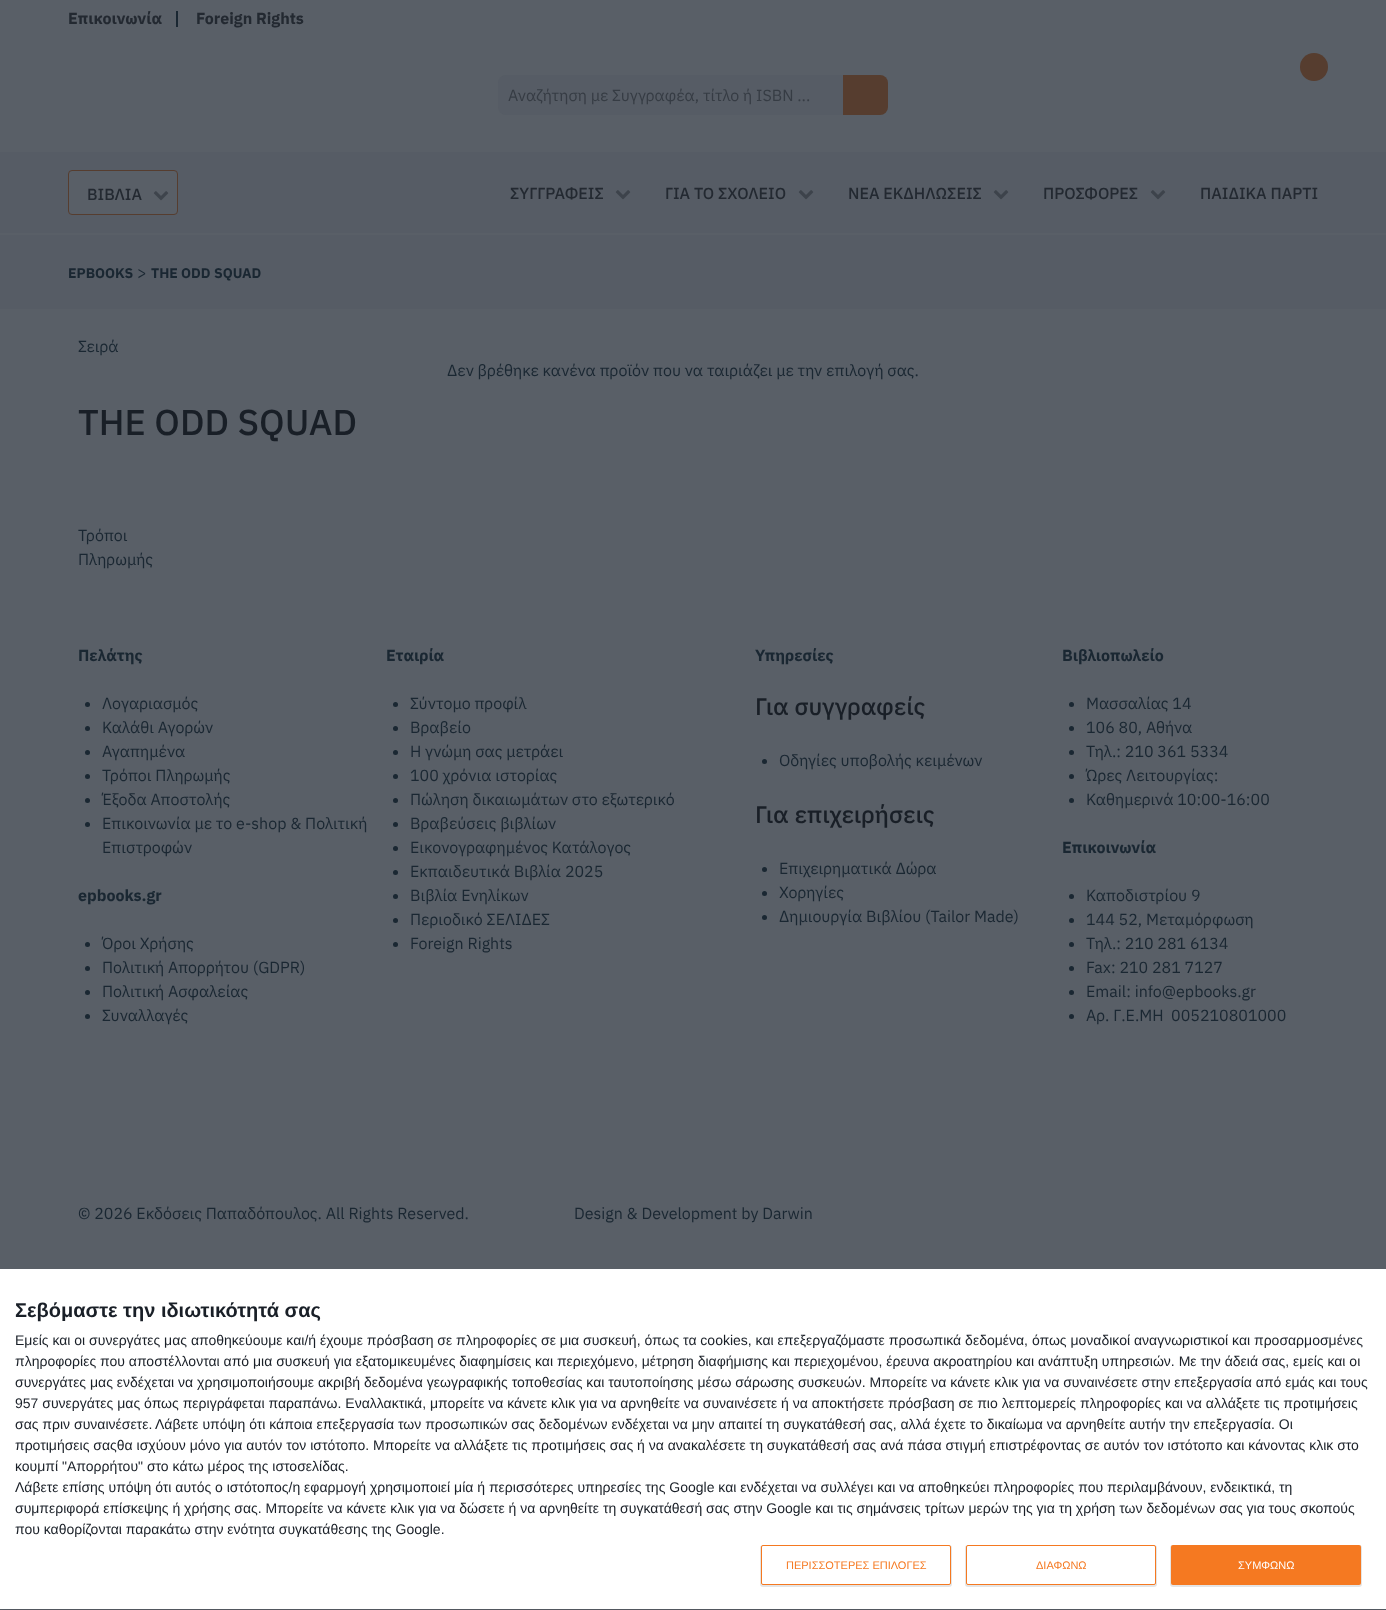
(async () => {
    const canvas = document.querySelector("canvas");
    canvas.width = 1386;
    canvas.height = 1610;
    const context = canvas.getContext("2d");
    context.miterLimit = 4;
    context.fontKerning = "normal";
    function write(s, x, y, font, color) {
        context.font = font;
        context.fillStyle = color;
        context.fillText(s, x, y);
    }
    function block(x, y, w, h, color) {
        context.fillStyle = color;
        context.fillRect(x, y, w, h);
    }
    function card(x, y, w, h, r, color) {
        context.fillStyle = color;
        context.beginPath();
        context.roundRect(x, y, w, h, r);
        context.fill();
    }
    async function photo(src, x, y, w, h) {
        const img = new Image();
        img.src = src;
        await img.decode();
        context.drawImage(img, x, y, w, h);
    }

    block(0, 0, 1386, 1610, "rgb(89, 95, 103)");
    context.save();
    context.beginPath();
    context.rect(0, 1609, 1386, 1);
    context.clip();
    context.fillStyle = "rgba(25, 31, 39, 0.4)";
    context.filter = "blur(7.5px)";
    context.beginPath();
    context.rect(0, -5, 1386, 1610);
    context.fill();
    context.filter = "none";
    context.restore();
    write("Επικοινωνία", 68, 24, "bold 16px IBM Plex Sans", "rgb(35, 41, 49)");
    block(176, 11, 2, 16, "rgb(26, 39, 50)");
    write("Foreign Rights", 196, 24, "bold 16px IBM Plex Sans", "rgb(35, 41, 49)");
    context.fillStyle = "rgb(86, 61, 47)";
    context.beginPath();
    context.arc(1314, 67, 14, 0, Math.PI * 2);
    context.fill();
    context.fillStyle = "rgb(86, 92, 101)";
    context.beginPath();
    context.roundRect(498, 75, 346, 40, [8, 0, 0, 8]);
    context.fill();
    write("Αναζήτηση με Συγγραφέα, τίτλο ή ISBN ...", 508, 101, "16px IBM Plex Sans", "rgb(54, 60, 68)");
    context.fillStyle = "rgb(86, 61, 47)";
    context.beginPath();
    context.roundRect(843, 75, 45, 40, [0, 8, 8, 0]);
    context.fill();
    block(0, 152, 1386, 81, "rgb(86, 92, 101)");
    context.fillStyle = "rgb(89, 95, 103)";
    context.beginPath();
    context.roundRect(68.5, 170.5, 109, 44, 3.5);
    context.fill();
    context.strokeStyle = "rgb(86, 61, 47)";
    context.stroke();
    write("ΒΙΒΛΙΑ", 87, 200, "500 16px IBM Plex Sans", "rgb(35, 41, 49)");
    await photo("media/1.png", 153, 191, 16, 10);
    write("ΣΥΓΓΡΑΦΕΙΣ", 510, 199, "500 16px IBM Plex Sans", "rgb(35, 41, 49)");
    await photo("media/2.png", 615, 190, 16, 10);
    write("ΓΙΑ ΤΟ ΣΧΟΛΕΙΟ", 665, 199, "500 16px IBM Plex Sans", "rgb(35, 41, 49)");
    await photo("media/2.png", 798, 190, 16, 10);
    write("ΝΕΑ ΕΚΔΗΛΩΣΕΙΣ", 848, 199, "500 16px IBM Plex Sans", "rgb(35, 41, 49)");
    await photo("media/2.png", 993, 190, 16, 10);
    write("ΠΡΟΣΦΟΡΕΣ", 1043, 199, "500 16px IBM Plex Sans", "rgb(35, 41, 49)");
    await photo("media/2.png", 1150, 190, 16, 10);
    write("ΠΑΙΔΙΚΑ ΠΑΡΤΙ", 1200, 199, "500 16px IBM Plex Sans", "rgb(35, 41, 49)");
    block(0, 235, 1386, 74, "rgb(86, 92, 101)");
    write("EPBOOKS", 68, 278, "bold 14px IBM Plex Sans", "rgb(26, 39, 50)");
    write(">", 137, 278, "16px IBM Plex Sans", "rgb(26, 39, 50)");
    write("THE ODD SQUAD", 151, 278, "bold 14px IBM Plex Sans", "rgb(26, 39, 50)");
    write("Σειρά", 78, 352, "16px IBM Plex Sans", "rgb(26, 39, 50)");
    write("THE ODD SQUAD", 78, 435, "500 36px IBM Plex Sans", "rgb(25, 31, 39)");
    write("Δεν βρέθηκε κανένα προϊόν που να ταιριάζει με την επιλογή σας.", 447, 376, "16px IBM Plex Sans", "rgb(26, 39, 50)");
    write("Τρόποι", 78, 541, "16px IBM Plex Sans", "rgb(26, 39, 50)");
    write("Πληρωμής", 78, 565, "16px IBM Plex Sans", "rgb(26, 39, 50)");
    write("Πελάτης", 78, 661, "bold 16px IBM Plex Sans", "rgb(26, 39, 50)");
    context.beginPath();
    context.arc(87.5, 704.5, 2.5, 0, Math.PI * 2);
    context.fill();
    write("Λογαριασμός", 102, 709, "16px IBM Plex Sans", "rgb(26, 39, 50)");
    context.beginPath();
    context.arc(87.5, 728.5, 2.5, 0, Math.PI * 2);
    context.fill();
    write("Καλάθι Αγορών", 102, 733, "16px IBM Plex Sans", "rgb(26, 39, 50)");
    context.beginPath();
    context.arc(87.5, 752.5, 2.5, 0, Math.PI * 2);
    context.fill();
    write("Αγαπημένα", 102, 757, "16px IBM Plex Sans", "rgb(26, 39, 50)");
    context.beginPath();
    context.arc(87.5, 776.5, 2.5, 0, Math.PI * 2);
    context.fill();
    write("Τρόποι Πληρωμής", 102, 781, "16px IBM Plex Sans", "rgb(26, 39, 50)");
    context.beginPath();
    context.arc(87.5, 800.5, 2.5, 0, Math.PI * 2);
    context.fill();
    write("Έξοδα Αποστολής", 102, 805, "16px IBM Plex Sans", "rgb(26, 39, 50)");
    context.beginPath();
    context.arc(87.5, 824.5, 2.5, 0, Math.PI * 2);
    context.fill();
    write("Επικοινωνία με το e-shop & Πολιτική", 102, 829, "16px IBM Plex Sans", "rgb(26, 39, 50)");
    write("Επιστροφών", 102, 853, "16px IBM Plex Sans", "rgb(26, 39, 50)");
    write("epbooks.gr", 78, 901, "bold 16px IBM Plex Sans", "rgb(26, 39, 50)");
    context.beginPath();
    context.arc(87.5, 944.5, 2.5, 0, Math.PI * 2);
    context.fill();
    write("Όροι Χρήσης", 102, 949, "16px IBM Plex Sans", "rgb(26, 39, 50)");
    context.beginPath();
    context.arc(87.5, 968.5, 2.5, 0, Math.PI * 2);
    context.fill();
    write("Πολιτική Απορρήτου (GDPR)", 102, 973, "16px IBM Plex Sans", "rgb(26, 39, 50)");
    context.beginPath();
    context.arc(87.5, 992.5, 2.5, 0, Math.PI * 2);
    context.fill();
    write("Πολιτική Ασφαλείας", 102, 997, "16px IBM Plex Sans", "rgb(26, 39, 50)");
    context.beginPath();
    context.arc(87.5, 1016.5, 2.5, 0, Math.PI * 2);
    context.fill();
    write("Συναλλαγές", 102, 1021, "16px IBM Plex Sans", "rgb(26, 39, 50)");
    write("Εταιρία", 386, 661, "bold 16px IBM Plex Sans", "rgb(26, 39, 50)");
    context.beginPath();
    context.arc(395.5, 704.5, 2.5, 0, Math.PI * 2);
    context.fill();
    write("Σύντομο προφίλ", 410, 709, "16px IBM Plex Sans", "rgb(26, 39, 50)");
    context.beginPath();
    context.arc(395.5, 728.5, 2.5, 0, Math.PI * 2);
    context.fill();
    write("Βραβείο", 410, 733, "16px IBM Plex Sans", "rgb(26, 39, 50)");
    context.beginPath();
    context.arc(395.5, 752.5, 2.5, 0, Math.PI * 2);
    context.fill();
    write("Η γνώμη σας μετράει", 410, 757, "16px IBM Plex Sans", "rgb(26, 39, 50)");
    context.beginPath();
    context.arc(395.5, 776.5, 2.5, 0, Math.PI * 2);
    context.fill();
    write("100 χρόνια ιστορίας", 410, 781, "16px IBM Plex Sans", "rgb(26, 39, 50)");
    context.beginPath();
    context.arc(395.5, 800.5, 2.5, 0, Math.PI * 2);
    context.fill();
    write("Πώληση δικαιωμάτων στο εξωτερικό", 410, 805, "16px IBM Plex Sans", "rgb(26, 39, 50)");
    context.beginPath();
    context.arc(395.5, 824.5, 2.5, 0, Math.PI * 2);
    context.fill();
    write("Βραβεύσεις βιβλίων", 410, 829, "16px IBM Plex Sans", "rgb(26, 39, 50)");
    context.beginPath();
    context.arc(395.5, 848.5, 2.5, 0, Math.PI * 2);
    context.fill();
    write("Εικονογραφημένος Κατάλογος", 410, 853, "16px IBM Plex Sans", "rgb(26, 39, 50)");
    context.beginPath();
    context.arc(395.5, 872.5, 2.5, 0, Math.PI * 2);
    context.fill();
    write("Εκπαιδευτικά Βιβλία 2025", 410, 877, "16px IBM Plex Sans", "rgb(26, 39, 50)");
    context.beginPath();
    context.arc(395.5, 896.5, 2.5, 0, Math.PI * 2);
    context.fill();
    write("Βιβλία Ενηλίκων", 410, 901, "16px IBM Plex Sans", "rgb(26, 39, 50)");
    context.beginPath();
    context.arc(395.5, 920.5, 2.5, 0, Math.PI * 2);
    context.fill();
    write("Περιοδικό ΣΕΛΙΔΕΣ", 410, 925, "16px IBM Plex Sans", "rgb(26, 39, 50)");
    context.beginPath();
    context.arc(395.5, 944.5, 2.5, 0, Math.PI * 2);
    context.fill();
    write("Foreign Rights", 410, 949, "16px IBM Plex Sans", "rgb(26, 39, 50)");
    write("Υπηρεσίες", 755, 661, "bold 16px IBM Plex Sans", "rgb(26, 39, 50)");
    write("Για συγγραφείς", 755, 715, "500 24px IBM Plex Sans", "rgb(25, 31, 39)");
    context.fillStyle = "rgb(26, 39, 50)";
    context.beginPath();
    context.arc(764.5, 761.5, 2.5, 0, Math.PI * 2);
    context.fill();
    write("Οδηγίες υποβολής κειμένων", 779, 766, "16px IBM Plex Sans", "rgb(26, 39, 50)");
    write("Για επιχειρήσεις", 755, 823, "500 24px IBM Plex Sans", "rgb(25, 31, 39)");
    context.fillStyle = "rgb(26, 39, 50)";
    context.beginPath();
    context.arc(764.5, 869.5, 2.5, 0, Math.PI * 2);
    context.fill();
    write("Επιχειρηματικά Δώρα", 779, 874, "16px IBM Plex Sans", "rgb(26, 39, 50)");
    context.beginPath();
    context.arc(764.5, 893.5, 2.5, 0, Math.PI * 2);
    context.fill();
    write("Χορηγίες", 779, 898, "16px IBM Plex Sans", "rgb(26, 39, 50)");
    context.beginPath();
    context.arc(764.5, 917.5, 2.5, 0, Math.PI * 2);
    context.fill();
    write("Δημιουργία Βιβλίου (Tailor Made)", 779, 922, "16px IBM Plex Sans", "rgb(26, 39, 50)");
    write("Βιβλιοπωλείο", 1062, 661, "bold 16px IBM Plex Sans", "rgb(26, 39, 50)");
    context.beginPath();
    context.arc(1071.5, 704.5, 2.5, 0, Math.PI * 2);
    context.fill();
    write("Μασσαλίας 14", 1086, 709, "16px IBM Plex Sans", "rgb(26, 39, 50)");
    context.beginPath();
    context.arc(1071.5, 728.5, 2.5, 0, Math.PI * 2);
    context.fill();
    write("106 80, Αθήνα", 1086, 733, "16px IBM Plex Sans", "rgb(26, 39, 50)");
    context.beginPath();
    context.arc(1071.5, 752.5, 2.5, 0, Math.PI * 2);
    context.fill();
    write("Τηλ.: 210 361 5334", 1086, 757, "16px IBM Plex Sans", "rgb(26, 39, 50)");
    context.beginPath();
    context.arc(1071.5, 776.5, 2.5, 0, Math.PI * 2);
    context.fill();
    write("Ώρες Λειτουργίας:", 1086, 781, "16px IBM Plex Sans", "rgb(26, 39, 50)");
    context.beginPath();
    context.arc(1071.5, 800.5, 2.5, 0, Math.PI * 2);
    context.fill();
    write("Καθημερινά 10:00-16:00", 1086, 805, "16px IBM Plex Sans", "rgb(26, 39, 50)");
    write("Επικοινωνία", 1062, 853, "bold 16px IBM Plex Sans", "rgb(26, 39, 50)");
    context.beginPath();
    context.arc(1071.5, 896.5, 2.5, 0, Math.PI * 2);
    context.fill();
    write("Καποδιστρίου 9", 1086, 901, "16px IBM Plex Sans", "rgb(26, 39, 50)");
    context.beginPath();
    context.arc(1071.5, 920.5, 2.5, 0, Math.PI * 2);
    context.fill();
    write("144 52, Μεταμόρφωση", 1086, 925, "16px IBM Plex Sans", "rgb(26, 39, 50)");
    context.beginPath();
    context.arc(1071.5, 944.5, 2.5, 0, Math.PI * 2);
    context.fill();
    write("Τηλ.: 210 281 6134", 1086, 949, "16px IBM Plex Sans", "rgb(26, 39, 50)");
    context.beginPath();
    context.arc(1071.5, 968.5, 2.5, 0, Math.PI * 2);
    context.fill();
    write("Fax: 210 281 7127", 1086, 973, "16px IBM Plex Sans", "rgb(26, 39, 50)");
    context.beginPath();
    context.arc(1071.5, 992.5, 2.5, 0, Math.PI * 2);
    context.fill();
    write("Email: info@epbooks.gr", 1086, 997, "16px IBM Plex Sans", "rgb(26, 39, 50)");
    context.beginPath();
    context.arc(1071.5, 1016.5, 2.5, 0, Math.PI * 2);
    context.fill();
    write("Αρ. Γ.Ε.ΜΗ  005210801000", 1086, 1021, "16px IBM Plex Sans", "rgb(26, 39, 50)");
    write("© 2026 Εκδόσεις Παπαδόπουλος. All Rights Reserved.", 78, 1219, "16px IBM Plex Sans", "rgb(26, 39, 50)");
    write("Design & Development by Darwin", 574, 1219, "16px IBM Plex Sans", "rgb(26, 39, 50)");
    block(0, 1269, 1386, 340, "rgb(255, 255, 255)");
    write("Σεβόμαστε την ιδιωτικότητά σας", 15, 1317, "bold 20px Liberation Sans", "rgb(25, 31, 39)");
    write("Εμείς και οι συνεργάτες μας αποθηκεύουμε και/ή έχουμε πρόσβαση σε πληροφορίες σε μια συσκευή, όπως τα cookies, και επεξεργαζόμαστε προσωπικά δεδομένα, όπως μοναδικοί αναγνωριστικοί και προσαρμοσμένες", 15, 1345, "14px Liberation Sans", "rgb(25, 31, 39)");
    write("πληροφορίες που αποστέλλονται από μια συσκευή για εξατομικευμένες διαφημίσεις και περιεχόμενο, μέτρηση διαφήμισης και περιεχομένου, έρευνα ακροατηρίου και ανάπτυξη υπηρεσιών. Με την άδειά σας, εμείς και οι", 15, 1366, "14px Liberation Sans", "rgb(25, 31, 39)");
    write("συνεργάτες μας ενδέχεται να χρησιμοποιήσουμε ακριβή δεδομένα γεωγραφικής τοποθεσίας και ταυτοποίησης μέσω σάρωσης συσκευών. Μπορείτε να κάνετε κλικ για να συναινέσετε στην επεξεργασία από εμάς και τους", 15, 1387, "14px Liberation Sans", "rgb(25, 31, 39)");
    write("957 συνεργάτες μας όπως περιγράφεται παραπάνω. Εναλλακτικά, μπορείτε να κάνετε κλικ για να αρνηθείτε να συναινέσετε ή να αποκτήσετε πρόσβαση σε πιο λεπτομερείς πληροφορίες και να αλλάξετε τις προτιμήσεις", 15, 1408, "14px Liberation Sans", "rgb(25, 31, 39)");
    write("σας πριν συναινέσετε.", 15, 1429, "14px Liberation Sans", "rgb(25, 31, 39)");
    write("Λάβετε υπόψη ότι κάποια επεξεργασία των προσωπικών σας δεδομένων ενδέχεται να μην απαιτεί τη συγκατάθεσή σας, αλλά έχετε το δικαίωμα να αρνηθείτε αυτήν την επεξεργασία. Οι", 155, 1429, "14px Liberation Sans", "rgb(25, 31, 39)");
    write("προτιμήσεις σαςθα ισχύουν μόνο για αυτόν τον ιστότοπο. Μπορείτε να αλλάξετε τις προτιμήσεις σας ή να ανακαλέσετε τη συγκατάθεσή σας ανά πάσα στιγμή επιστρέφοντας σε αυτόν τον ιστότοπο και κάνοντας κλικ στο", 15, 1450, "14px Liberation Sans", "rgb(25, 31, 39)");
    write("κουμπί \"Απορρήτου\" στο κάτω μέρος της ιστοσελίδας.", 15, 1471, "14px Liberation Sans", "rgb(25, 31, 39)");
    write("Λάβετε επίσης υπόψη ότι αυτός ο ιστότοπος/η εφαρμογή χρησιμοποιεί μία ή περισσότερες υπηρεσίες της Google και ενδέχεται να συλλέγει και να αποθηκεύει πληροφορίες που περιλαμβάνουν, ενδεικτικά, τη", 15, 1492, "14px Liberation Sans", "rgb(25, 31, 39)");
    write("συμπεριφορά επίσκεψης ή χρήσης σας. Μπορείτε να κάνετε κλικ για να δώσετε ή να αρνηθείτε τη συγκατάθεσή σας στην Google και τις σημάνσεις τρίτων μερών της για τη χρήση των δεδομένων σας για τους σκοπούς", 15, 1513, "14px Liberation Sans", "rgb(25, 31, 39)");
    write("που καθορίζονται παρακάτω στην ενότητα συγκατάθεσης της Google.", 15, 1534, "14px Liberation Sans", "rgb(25, 31, 39)");
    context.fillStyle = "rgba(0, 0, 0, 0.1)";
    context.filter = "blur(0.5px)";
    context.beginPath();
    context.roundRect(760, 1545, 192, 42, 3);
    context.fill();
    context.filter = "none";
    context.fillStyle = "rgb(255, 255, 255)";
    context.beginPath();
    context.roundRect(761.5, 1545.5, 189, 39, 1.5);
    context.fill();
    context.strokeStyle = "rgb(245, 121, 33)";
    context.stroke();
    write("ΠΕΡΙΣΣΟΤΕΡΕΣ ΕΠΙΛΟΓΕΣ", 786, 1569, "11px Liberation Sans", "rgb(245, 121, 33)");
    context.fillStyle = "rgba(0, 0, 0, 0.1)";
    context.filter = "blur(0.5px)";
    context.beginPath();
    context.roundRect(965, 1545, 192, 42, 3);
    context.fill();
    context.filter = "none";
    context.fillStyle = "rgb(255, 255, 255)";
    context.beginPath();
    context.roundRect(966.5, 1545.5, 189, 39, 1.5);
    context.fill();
    context.stroke();
    write("ΔΙΑΦΩΝΩ", 1036, 1569, "11px Liberation Sans", "rgb(245, 121, 33)");
    context.fillStyle = "rgba(0, 0, 0, 0.1)";
    context.filter = "blur(0.5px)";
    context.beginPath();
    context.roundRect(1170, 1545, 192, 42, 3);
    context.fill();
    context.filter = "none";
    card(1171, 1545, 190, 40, 2, "rgb(245, 121, 33)");
    write("ΣΥΜΦΩΝΩ", 1238, 1569, "11px Liberation Sans", "rgb(255, 255, 255)");
})();
